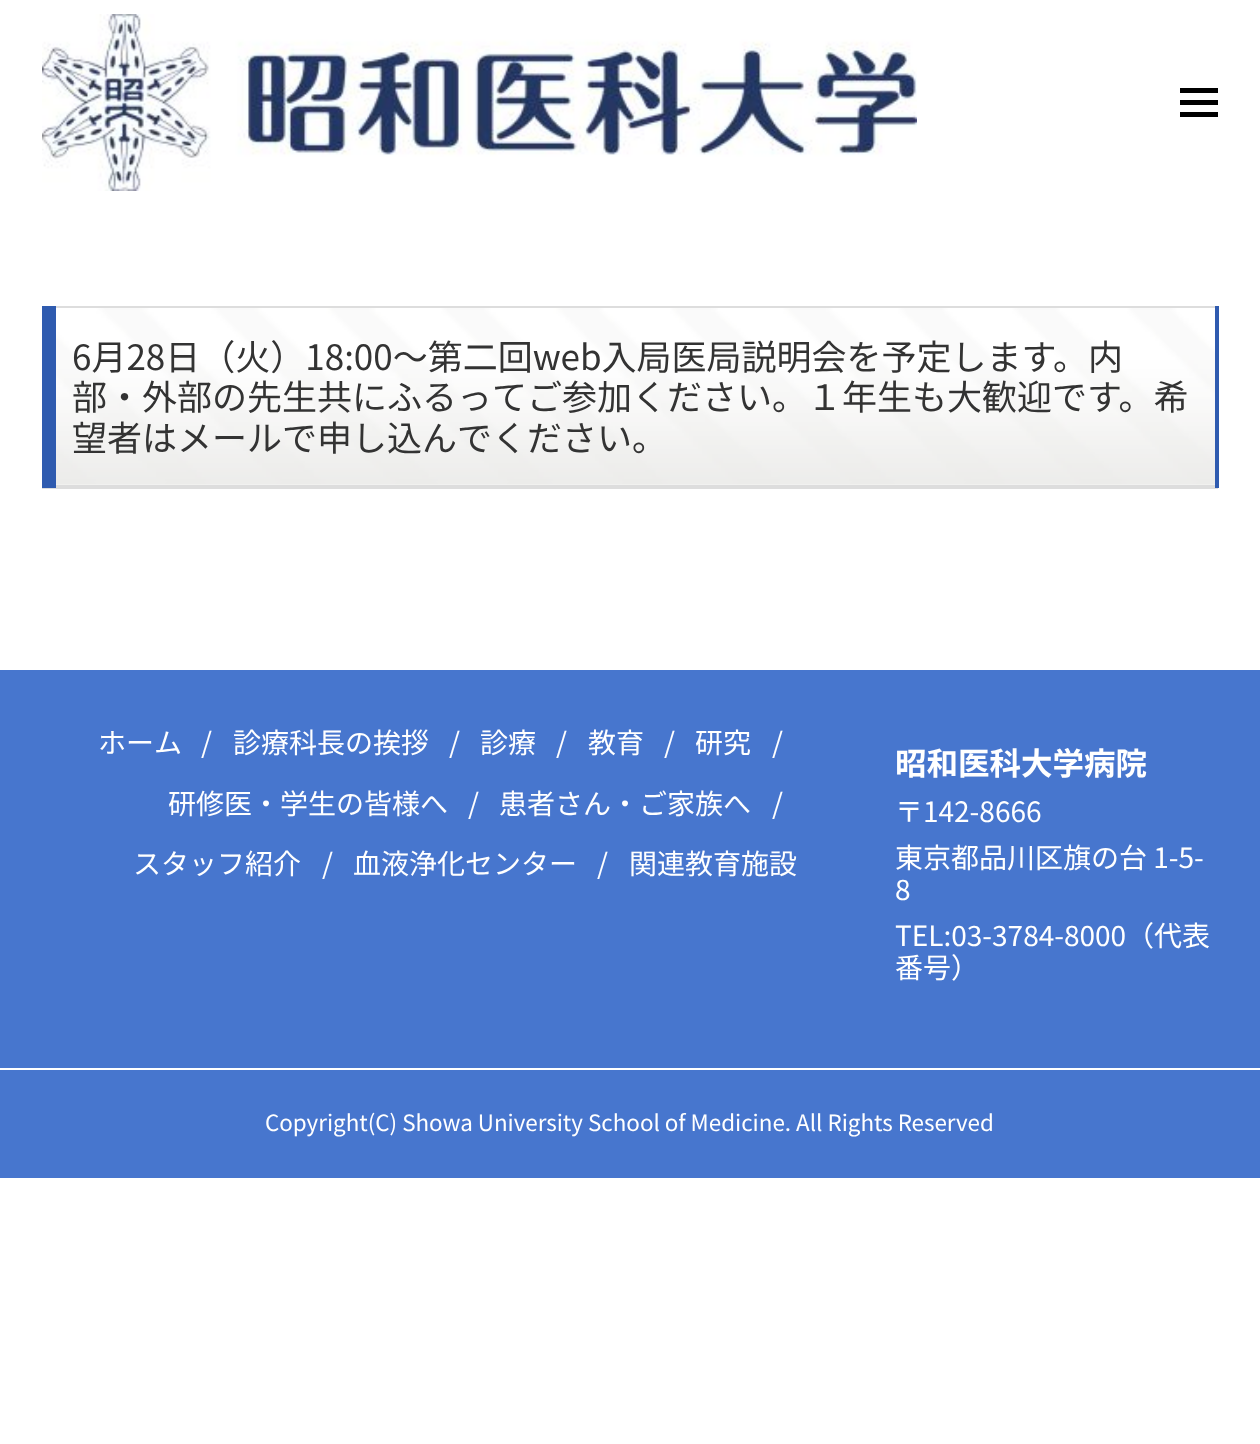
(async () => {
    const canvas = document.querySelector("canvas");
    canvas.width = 1260;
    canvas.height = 1444;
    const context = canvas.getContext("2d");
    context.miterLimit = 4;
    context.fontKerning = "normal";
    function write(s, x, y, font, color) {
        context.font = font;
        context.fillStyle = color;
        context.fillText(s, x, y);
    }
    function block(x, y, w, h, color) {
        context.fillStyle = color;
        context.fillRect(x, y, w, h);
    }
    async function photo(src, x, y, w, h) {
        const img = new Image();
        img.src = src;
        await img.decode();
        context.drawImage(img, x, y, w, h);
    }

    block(0, 0, 1260, 1444, "rgb(255, 255, 255)");
    await photo("media/1.png", 42, 14, 875, 177);
    block(1180, 88, 38, 5, "rgb(0, 0, 0)");
    block(1180, 100, 38, 5, "rgb(0, 0, 0)");
    block(1180, 112, 38, 5, "rgb(0, 0, 0)");
    await photo("media/2.png", 56, 308, 1159, 177);
    block(56, 306, 1162, 2, "rgb(221, 221, 221)");
    block(42, 485, 1176, 4, "rgb(221, 221, 221)");
    block(42, 306, 14, 182, "rgb(47, 91, 175)");
    write("6月28日（火）18:00～第二回web入局医局説明会を予定します。内", 72, 370, "35px Noto Sans JP", "rgb(51, 51, 51)");
    block(1215, 306, 4, 182, "rgb(47, 91, 175)");
    write("部・外部の先生共にふるってご参加ください。１年生も大歓迎です。希", 72, 410, "35px Noto Sans JP", "rgb(51, 51, 51)");
    write("望者はメールで申し込んでください。", 72, 451, "35px Noto Sans JP", "rgb(51, 51, 51)");
    block(0, 670, 1260, 508, "rgb(71, 118, 206)");
    write("ホーム", 98, 753, "28px Noto Sans JP", "rgb(255, 255, 255)");
    write("/", 201, 753, "28px Noto Sans JP", "rgb(255, 255, 255)");
    write("診療科長の挨拶", 233, 753, "28px Noto Sans JP", "rgb(255, 255, 255)");
    write("/", 449, 753, "28px Noto Sans JP", "rgb(255, 255, 255)");
    write("診療", 480, 753, "28px Noto Sans JP", "rgb(255, 255, 255)");
    write("/", 556, 753, "28px Noto Sans JP", "rgb(255, 255, 255)");
    write("教育", 588, 753, "28px Noto Sans JP", "rgb(255, 255, 255)");
    write("/", 664, 753, "28px Noto Sans JP", "rgb(255, 255, 255)");
    write("研究", 695, 753, "28px Noto Sans JP", "rgb(255, 255, 255)");
    write("/", 772, 753, "28px Noto Sans JP", "rgb(255, 255, 255)");
    write("研修医・学生の皆様へ", 168, 814, "28px Noto Sans JP", "rgb(255, 255, 255)");
    write("/", 468, 814, "28px Noto Sans JP", "rgb(255, 255, 255)");
    write("患者さん・ご家族へ", 499, 814, "28px Noto Sans JP", "rgb(255, 255, 255)");
    write("/", 772, 814, "28px Noto Sans JP", "rgb(255, 255, 255)");
    write("スタッフ紹介", 133, 874, "28px Noto Sans JP", "rgb(255, 255, 255)");
    write("/", 322, 874, "28px Noto Sans JP", "rgb(255, 255, 255)");
    write("血液浄化センター", 353, 874, "28px Noto Sans JP", "rgb(255, 255, 255)");
    write("/", 597, 874, "28px Noto Sans JP", "rgb(255, 255, 255)");
    write("関連教育施設", 629, 874, "28px Noto Sans JP", "rgb(255, 255, 255)");
    write("昭和医科大学病院", 895, 775, "bold 31.5px Noto Sans JP", "rgb(255, 255, 255)");
    write("〒142-8666", 895, 822, "28px Noto Sans JP", "rgb(255, 255, 255)");
    write("東京都品川区旗の台 1-5-", 895, 868, "28px Noto Sans JP", "rgb(255, 255, 255)");
    write("8", 895, 900, "28px Noto Sans JP", "rgb(255, 255, 255)");
    write("TEL:03-3784-8000（代表", 895, 946, "28px Noto Sans JP", "rgb(255, 255, 255)");
    write("番号）", 895, 978, "28px Noto Sans JP", "rgb(255, 255, 255)");
    block(0, 1068, 1260, 2, "rgb(255, 255, 255)");
    write("Copyright(C) Showa University School of Medicine. All Rights Reserved", 265, 1131, "22.4px Noto Sans JP", "rgb(255, 255, 255)");
})();
